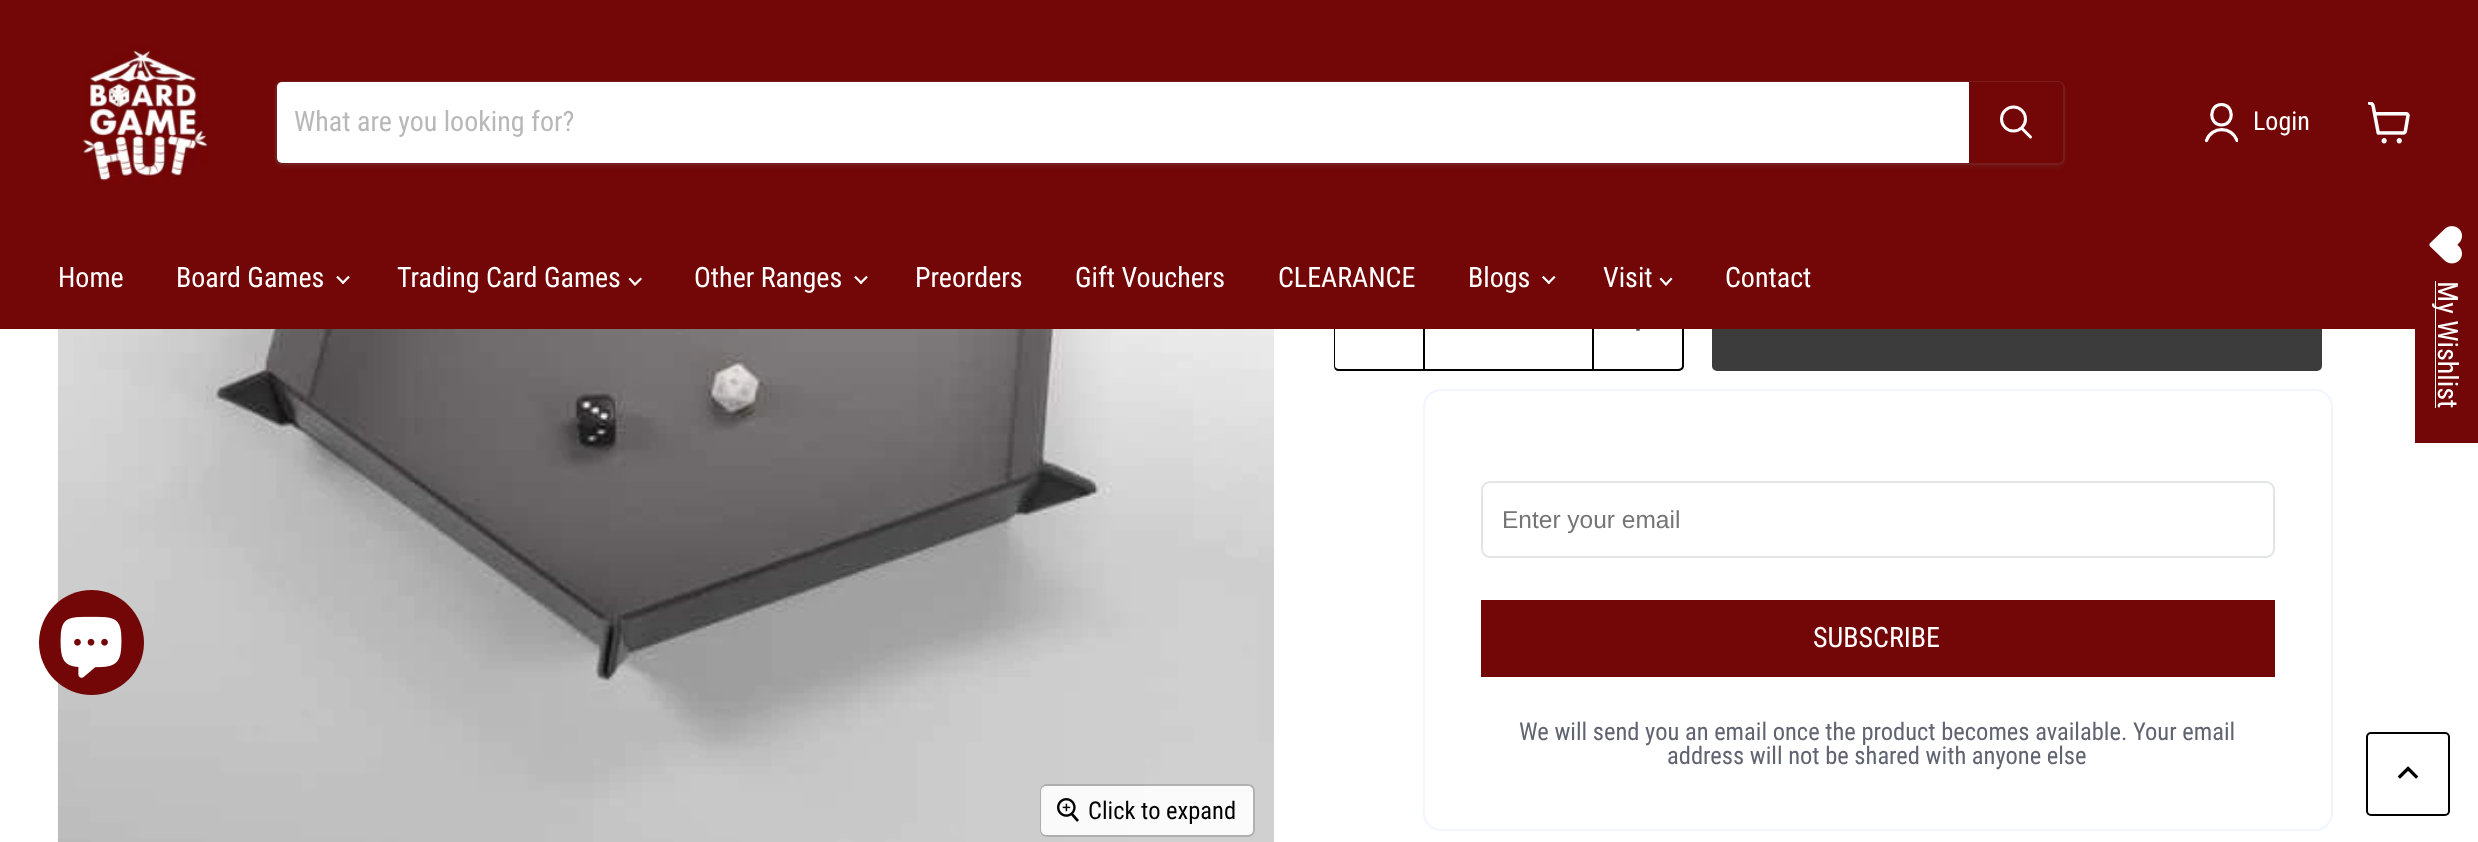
(async () => {
    const canvas = document.querySelector("canvas");
    canvas.width = 2478;
    canvas.height = 842;
    const context = canvas.getContext("2d");
    context.miterLimit = 4;
    context.fontKerning = "normal";
    function write(s, x, y, font, color) {
        context.font = font;
        context.fillStyle = color;
        context.fillText(s, x, y);
    }
    function block(x, y, w, h, color) {
        context.fillStyle = color;
        context.fillRect(x, y, w, h);
    }
    function card(x, y, w, h, r, color) {
        context.fillStyle = color;
        context.beginPath();
        context.roundRect(x, y, w, h, r);
        context.fill();
    }
    async function photo(src, x, y, w, h) {
        const img = new Image();
        img.src = src;
        await img.decode();
        context.drawImage(img, x, y, w, h);
    }

    block(0, 0, 2478, 842, "rgb(255, 255, 255)");
    context.fillStyle = "rgb(0, 0, 0)";
    context.beginPath();
    context.moveTo(1339, 275);
    context.lineTo(1423, 275);
    context.lineTo(1423, 371);
    context.lineTo(1339, 371);
    context.bezierCurveTo(1336, 371, 1334, 369, 1334, 366);
    context.lineTo(1334, 280);
    context.bezierCurveTo(1334, 277, 1336, 275, 1339, 275);
    context.closePath();
    context.moveTo(1339, 276);
    context.lineTo(1423, 276);
    context.lineTo(1423, 369);
    context.lineTo(1339, 369);
    context.bezierCurveTo(1337, 369, 1335, 368, 1335, 366);
    context.lineTo(1335, 280);
    context.bezierCurveTo(1335, 278, 1337, 276, 1339, 276);
    context.closePath();
    context.fill("evenodd");
    context.strokeStyle = "rgb(0, 0, 0)";
    context.lineWidth = 2;
    context.strokeRect(1424, 276, 169, 94);
    context.beginPath();
    context.moveTo(1594, 275);
    context.lineTo(1678, 275);
    context.bezierCurveTo(1681, 275, 1684, 277, 1684, 280);
    context.lineTo(1684, 366);
    context.bezierCurveTo(1684, 369, 1681, 371, 1678, 371);
    context.lineTo(1594, 371);
    context.closePath();
    context.moveTo(1594, 276);
    context.lineTo(1678, 276);
    context.bezierCurveTo(1680, 276, 1682, 278, 1682, 280);
    context.lineTo(1682, 366);
    context.bezierCurveTo(1682, 368, 1680, 369, 1678, 369);
    context.lineTo(1594, 369);
    context.closePath();
    context.fill("evenodd");
    context.fillStyle = "rgb(60, 60, 60)";
    context.beginPath();
    context.roundRect(1713, 276, 608, 94, 4);
    context.fill();
    context.strokeStyle = "rgb(60, 60, 60)";
    context.stroke();
    block(0, 0, 2478, 329, "rgb(115, 6, 6)");
    await photo("media/1.png", 81, 44, 127, 140);
    context.save();
    context.beginPath();
    context.moveTo(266, 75);
    context.lineTo(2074, 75);
    context.lineTo(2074, 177);
    context.lineTo(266, 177);
    context.closePath();
    context.moveTo(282, 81);
    context.lineTo(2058, 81);
    context.bezierCurveTo(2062, 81, 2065, 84, 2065, 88);
    context.lineTo(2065, 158);
    context.bezierCurveTo(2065, 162, 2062, 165, 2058, 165);
    context.lineTo(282, 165);
    context.bezierCurveTo(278, 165, 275, 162, 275, 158);
    context.lineTo(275, 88);
    context.bezierCurveTo(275, 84, 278, 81, 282, 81);
    context.closePath();
    context.clip("evenodd");
    context.fillStyle = "rgba(128, 128, 128, 0.11)";
    context.filter = "blur(2.5px)";
    context.beginPath();
    context.roundRect(275, 84, 1790, 84, 7);
    context.fill();
    context.filter = "none";
    context.restore();
    context.beginPath();
    context.roundRect(276, 82, 1788, 82, 6);
    context.strokeStyle = "rgba(128, 128, 128, 0.2)";
    context.stroke();
    context.fillStyle = "rgb(255, 255, 255)";
    context.beginPath();
    context.roundRect(277, 82, 1692, 81, [5, 0, 0, 5]);
    context.fill();
    write("What are you looking for?", 294, 131, "28px Roboto Condensed", "rgb(184, 184, 184)");
    context.fillStyle = "rgb(115, 6, 6)";
    context.beginPath();
    context.roundRect(1970, 83, 92, 79, [0, 4, 4, 0]);
    context.fill();
    context.strokeStyle = "rgb(115, 6, 6)";
    context.stroke();
    context.beginPath();
    context.moveTo(2030.5, 137);
    context.lineTo(2022, 128.5);
    context.strokeStyle = "rgb(255, 255, 255)";
    context.lineWidth = 3;
    context.lineCap = "round";
    context.stroke();
    context.beginPath();
    context.arc(2013.5, 119, 12, 0, Math.PI * 2);
    context.stroke();
    context.beginPath();
    context.moveTo(2221.5, 125);
    context.bezierCurveTo(2234.5, 125, 2234.5, 104.5, 2221.5, 104.5);
    context.bezierCurveTo(2208.5, 104.5, 2208.5, 125, 2221.5, 125);
    context.closePath();
    context.lineWidth = 3.2;
    context.lineJoin = "round";
    context.stroke();
    context.save();
    context.beginPath();
    context.rect(2203, 102, 35, 42);
    context.clip();
    context.beginPath();
    context.moveTo(2237, 140.5);
    context.bezierCurveTo(2232, 126, 2211.5, 126, 2206.5, 140.5);
    context.stroke();
    context.restore();
    write("Login", 2253, 130, "26px Roboto Condensed", "rgb(255, 255, 255)");
    await photo("media/2.png", 2368, 102, 42, 42);
    write("Home", 58, 287, "28px Roboto Condensed", "rgb(255, 255, 255)");
    write("Board Games", 176, 287, "28px Roboto Condensed", "rgb(255, 255, 255)");
    await photo("media/3.png", 336, 275, 14, 10);
    write("Trading Card Games", 397, 287, "28px Roboto Condensed", "rgb(255, 255, 255)");
    context.beginPath();
    context.moveTo(635, 284.5);
    context.lineTo(640.5, 279);
    context.moveTo(635, 284.5);
    context.lineTo(630, 279);
    context.lineWidth = 2.2;
    context.lineCap = "square";
    context.lineJoin = "miter";
    context.stroke();
    write("Other Ranges", 694, 287, "28px Roboto Condensed", "rgb(255, 255, 255)");
    await photo("media/3.png", 854, 275, 14, 10);
    write("Preorders", 915, 287, "28px Roboto Condensed", "rgb(255, 255, 255)");
    write("Gift Vouchers", 1075, 287, "28px Roboto Condensed", "rgb(255, 255, 255)");
    write("CLEARANCE", 1278, 287, "28px Roboto Condensed", "rgb(255, 255, 255)");
    write("Blogs", 1468, 287, "28px Roboto Condensed", "rgb(255, 255, 255)");
    await photo("media/4.png", 1542, 275, 14, 10);
    write("Visit", 1603, 287, "28px Roboto Condensed", "rgb(255, 255, 255)");
    context.beginPath();
    context.moveTo(1666, 284.5);
    context.lineTo(1671, 279);
    context.moveTo(1666, 284.5);
    context.lineTo(1661, 279);
    context.stroke();
    write("Contact", 1725, 287, "28px Roboto Condensed", "rgb(255, 255, 255)");
    block(2415, 329, 63, 114, "rgb(115, 6, 6)");
    await photo("media/5.png", 2429, 226, 33, 38);
    block(2435, 281, 1, 127, "rgb(255, 255, 255)");
    context.save();
    context.translate(2438, 281);
    context.rotate(90 * Math.PI / 180);
    context.fillText("My Wishlist", 0, 0);
    context.restore();
    await photo("media/8.png", 57, 329, 1217, 513);
    context.fillStyle = "rgb(115, 6, 6)";
    context.beginPath();
    context.arc(91.5, 642.5, 52.5, 0, Math.PI * 2);
    context.fill();
    await photo("media/6.png", 60, 616, 62, 62);
    await photo("media/7.png", 1636, 329, 4, 2);
    context.beginPath();
    context.roundRect(1424, 390, 908, 440, 17);
    context.strokeStyle = "rgb(240, 245, 255)";
    context.lineWidth = 2;
    context.stroke();
    context.beginPath();
    context.roundRect(1482, 482, 792, 75, 8);
    context.strokeStyle = "rgb(226, 228, 230)";
    context.stroke();
    write("Enter your email", 1502, 528, "24.5px Liberation Sans", "rgb(117, 117, 117)");
    block(1481, 600, 794, 77, "rgb(115, 6, 6)");
    write("SUBSCRIBE", 1813, 647, "28px Roboto Condensed", "rgb(255, 255, 255)");
    write("We will send you an email once the product becomes available. Your email", 1519, 740, "24.5px Roboto Condensed", "rgb(96, 100, 113)");
    write("address will not be shared with anyone else", 1667, 764, "24.5px Roboto Condensed", "rgb(96, 100, 113)");
    context.beginPath();
    context.roundRect(1041, 785, 213, 51, 6);
    context.strokeStyle = "rgba(0, 0, 0, 0.15)";
    context.stroke();
    card(1041, 786, 212, 49, 5, "rgba(255, 255, 255, 0.9)");
    await photo("media/9.png", 1057, 798, 22, 24);
    write("Click to expand", 1088, 819, "24.5px Roboto Condensed", "rgb(0, 0, 0)");
    context.beginPath();
    context.roundRect(2367, 733, 82, 82, 4);
    context.strokeStyle = "rgb(0, 0, 0)";
    context.stroke();
    context.beginPath();
    context.moveTo(2408, 768.5);
    context.lineTo(2400, 776.5);
    context.moveTo(2408, 768.5);
    context.lineTo(2416, 776.5);
    context.lineWidth = 3.3;
    context.stroke();
})();
